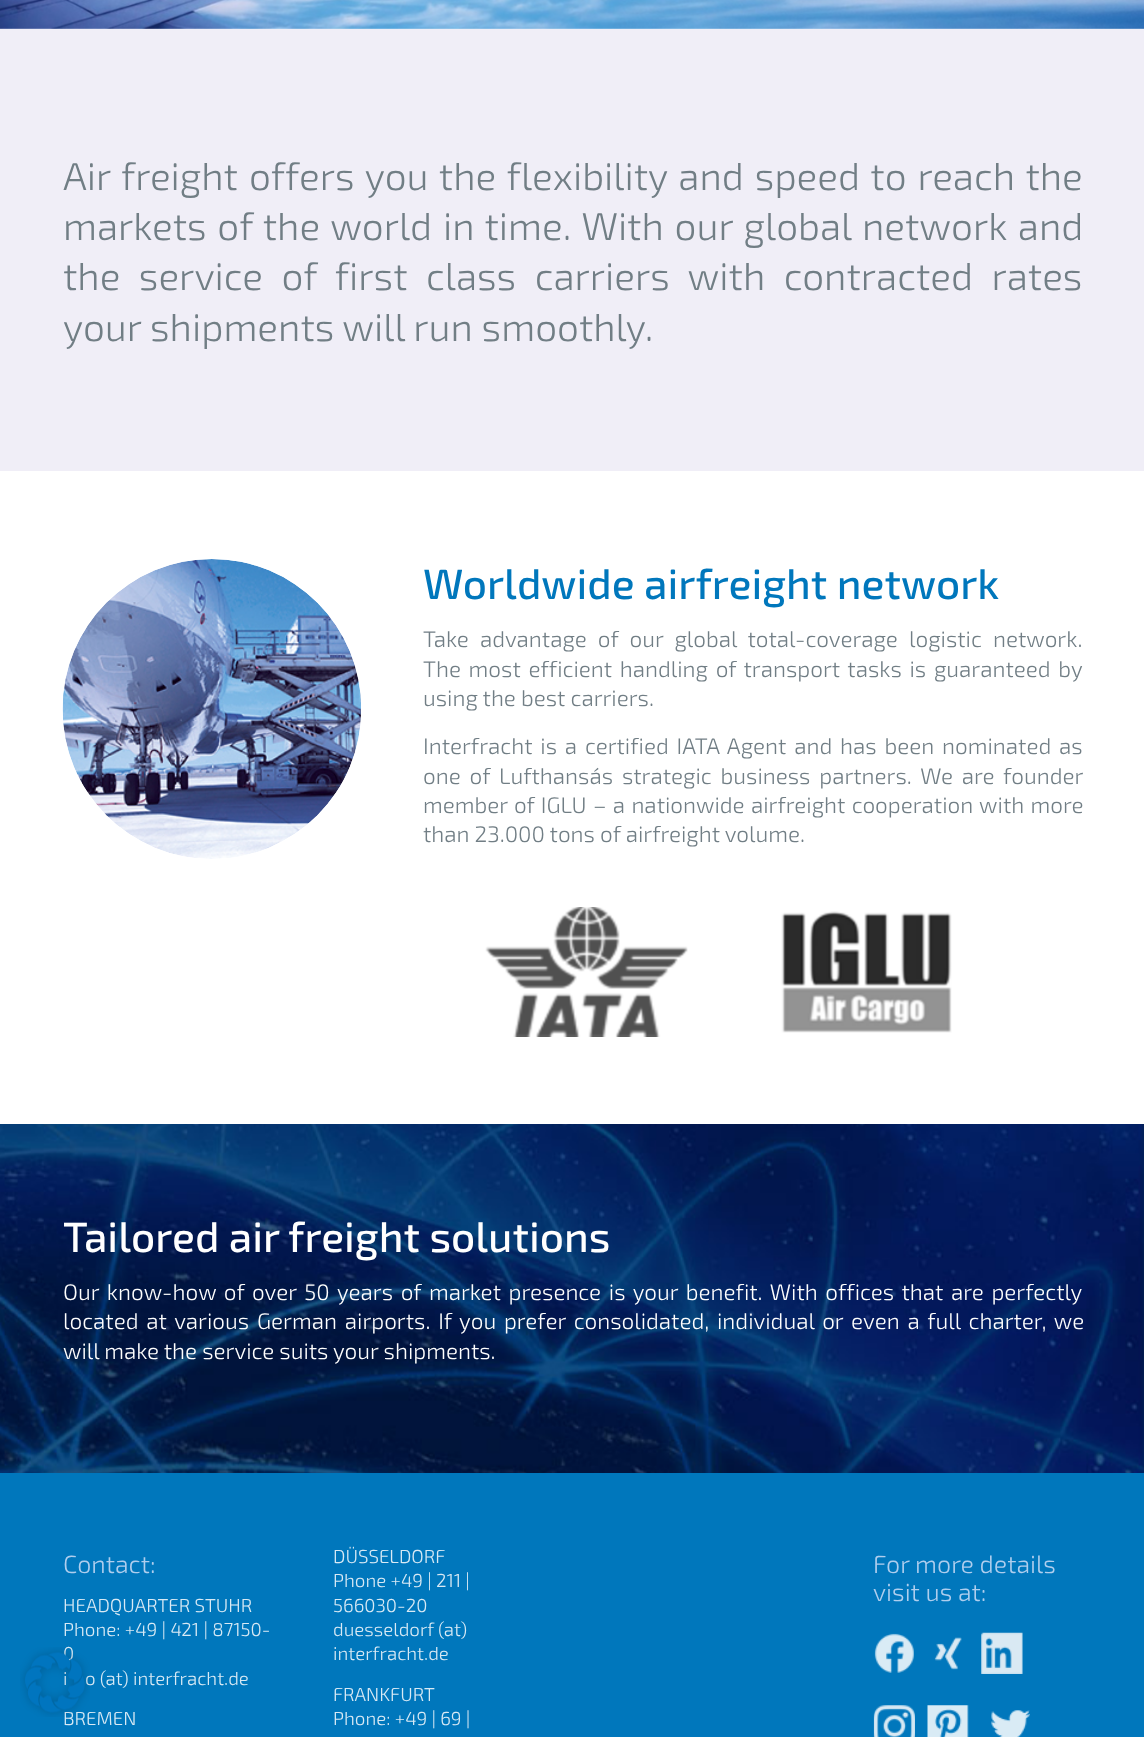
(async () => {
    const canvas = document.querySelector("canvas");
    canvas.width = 1144;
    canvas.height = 1737;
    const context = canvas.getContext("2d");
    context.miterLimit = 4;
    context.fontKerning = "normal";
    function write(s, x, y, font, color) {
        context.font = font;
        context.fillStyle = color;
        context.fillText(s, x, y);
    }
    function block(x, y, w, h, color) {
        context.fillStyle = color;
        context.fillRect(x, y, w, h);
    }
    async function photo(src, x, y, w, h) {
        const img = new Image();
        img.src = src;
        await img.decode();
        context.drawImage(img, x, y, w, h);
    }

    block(0, 0, 1144, 1737, "rgb(255, 255, 255)");
    block(0, 1473, 1144, 264, "rgb(0, 119, 188)");
    write("0", 63, 1660, "300 18.75px 'Exo 2'", "rgb(217, 234, 245)");
    write("i", 63, 1685, "300 18.75px 'Exo 2'", "rgb(217, 234, 245)");
    write("o (at) interfracht.de", 85, 1685, "300 18.75px 'Exo 2'", "rgb(217, 234, 245)");
    write("BREMEN", 63, 1725, "300 18.75px 'Exo 2'", "rgb(217, 234, 245)");
    await photo("media/1.png", 20, 1647, 70, 70);
    await photo("media/2.png", 0, 0, 1144, 29);
    block(0, 29, 1144, 442, "rgb(240, 238, 247)");
    context.wordSpacing = "2.25px";
    write("Air freight offers you the flexibility and speed to reach the", 63, 190, "300 38.75px 'Exo 2'", "rgb(113, 126, 133)");
    context.wordSpacing = "2px";
    write("markets of the world in time. With our global network and", 63, 240, "300 38.75px 'Exo 2'", "rgb(113, 126, 133)");
    context.wordSpacing = "9.75px";
    write("the service of first class carriers with contracted rates", 63, 290, "300 38.75px 'Exo 2'", "rgb(113, 126, 133)");
    context.wordSpacing = "0px";
    write("your shipments will run smoothly.", 63, 341, "300 38.75px 'Exo 2'", "rgb(113, 126, 133)");
    await photo("media/3.png", 62, 559, 299, 300);
    write("Worldwide airfreight network", 423, 599, "500 42.5px 'Exo 2'", "rgb(0, 119, 188)");
    context.wordSpacing = "6px";
    write("Take advantage of our global total-coverage logistic network.", 423, 647, "300 22.5px 'Exo 2'", "rgb(113, 126, 133)");
    context.wordSpacing = "2.6px";
    write("The most efficient handling of transport tasks is guaranteed by", 423, 677, "300 22.5px 'Exo 2'", "rgb(113, 126, 133)");
    context.wordSpacing = "0px";
    write("using the best carriers.", 423, 706, "300 22.5px 'Exo 2'", "rgb(113, 126, 133)");
    context.wordSpacing = "2.75px";
    write("Interfracht is a certified IATA Agent and has been nominated as", 423, 754, "300 22.5px 'Exo 2'", "rgb(113, 126, 133)");
    context.wordSpacing = "3.75px";
    write("one of Lufthansa´s strategic business partners. We are founder", 423, 784, "300 22.5px 'Exo 2'", "rgb(113, 126, 133)");
    context.wordSpacing = "1.25px";
    write("member of IGLU – a nationwide airfreight cooperation with more", 423, 813, "300 22.5px 'Exo 2'", "rgb(113, 126, 133)");
    context.wordSpacing = "0px";
    write("than 23.000 tons of airfreight volume.", 423, 842, "300 22.5px 'Exo 2'", "rgb(113, 126, 133)");
    await photo("media/4.png", 485, 907, 203, 130);
    await photo("media/5.png", 781, 911, 171, 122);
    await photo("media/6.png", 0, 1124, 1144, 349);
    write("Tailored air freight solutions", 63, 1252, "500 42.5px 'Exo 2'", "rgb(255, 255, 255)");
    context.wordSpacing = "2.6px";
    write("Our know-how of over 50 years of market presence is your benefit. With offices that are perfectly", 63, 1300, "300 22.5px 'Exo 2'", "rgb(255, 255, 255)");
    context.wordSpacing = "2.75px";
    write("located at various German airports. If you prefer consolidated, individual or even a full charter, we", 63, 1329, "300 22.5px 'Exo 2'", "rgb(255, 255, 255)");
    context.wordSpacing = "0px";
    write("will make the service suits your shipments.", 63, 1359, "300 22.5px 'Exo 2'", "rgb(255, 255, 255)");
    write("Contact:", 63, 1573, "300 25px 'Exo 2'", "rgb(175, 206, 238)");
    write("HEADQUARTER STUHR", 63, 1612, "300 18.75px 'Exo 2'", "rgb(217, 234, 245)");
    write("Phone: +49 | 421 | 87150-", 63, 1636, "300 18.75px 'Exo 2'", "rgb(217, 234, 245)");
    write("DÜSSELDORF", 333, 1563, "300 18.75px 'Exo 2'", "rgb(217, 234, 245)");
    write("Phone +49 | 211 |", 333, 1587, "300 18.75px 'Exo 2'", "rgb(217, 234, 245)");
    write("566030-20", 333, 1612, "300 18.75px 'Exo 2'", "rgb(217, 234, 245)");
    write("duesseldorf (at)", 333, 1636, "300 18.75px 'Exo 2'", "rgb(217, 234, 245)");
    write("interfracht.de", 333, 1660, "300 18.75px 'Exo 2'", "rgb(217, 234, 245)");
    write("FRANKFURT", 333, 1701, "300 18.75px 'Exo 2'", "rgb(217, 234, 245)");
    write("Phone: +49 | 69 |", 333, 1725, "300 18.75px 'Exo 2'", "rgb(217, 234, 245)");
    write("For more details", 873, 1573, "300 25px 'Exo 2'", "rgb(175, 206, 238)");
    write("visit us at:", 873, 1601, "300 25px 'Exo 2'", "rgb(175, 206, 238)");
    await photo("media/7.png", 874, 1633, 40, 40);
    await photo("media/8.png", 934, 1637, 28, 33);
    await photo("media/9.png", 981, 1632, 42, 42);
    await photo("media/10.png", 873, 1705, 42, 32);
    await photo("media/11.png", 927, 1705, 42, 32);
    await photo("media/12.png", 991, 1710, 39, 27);
})();
